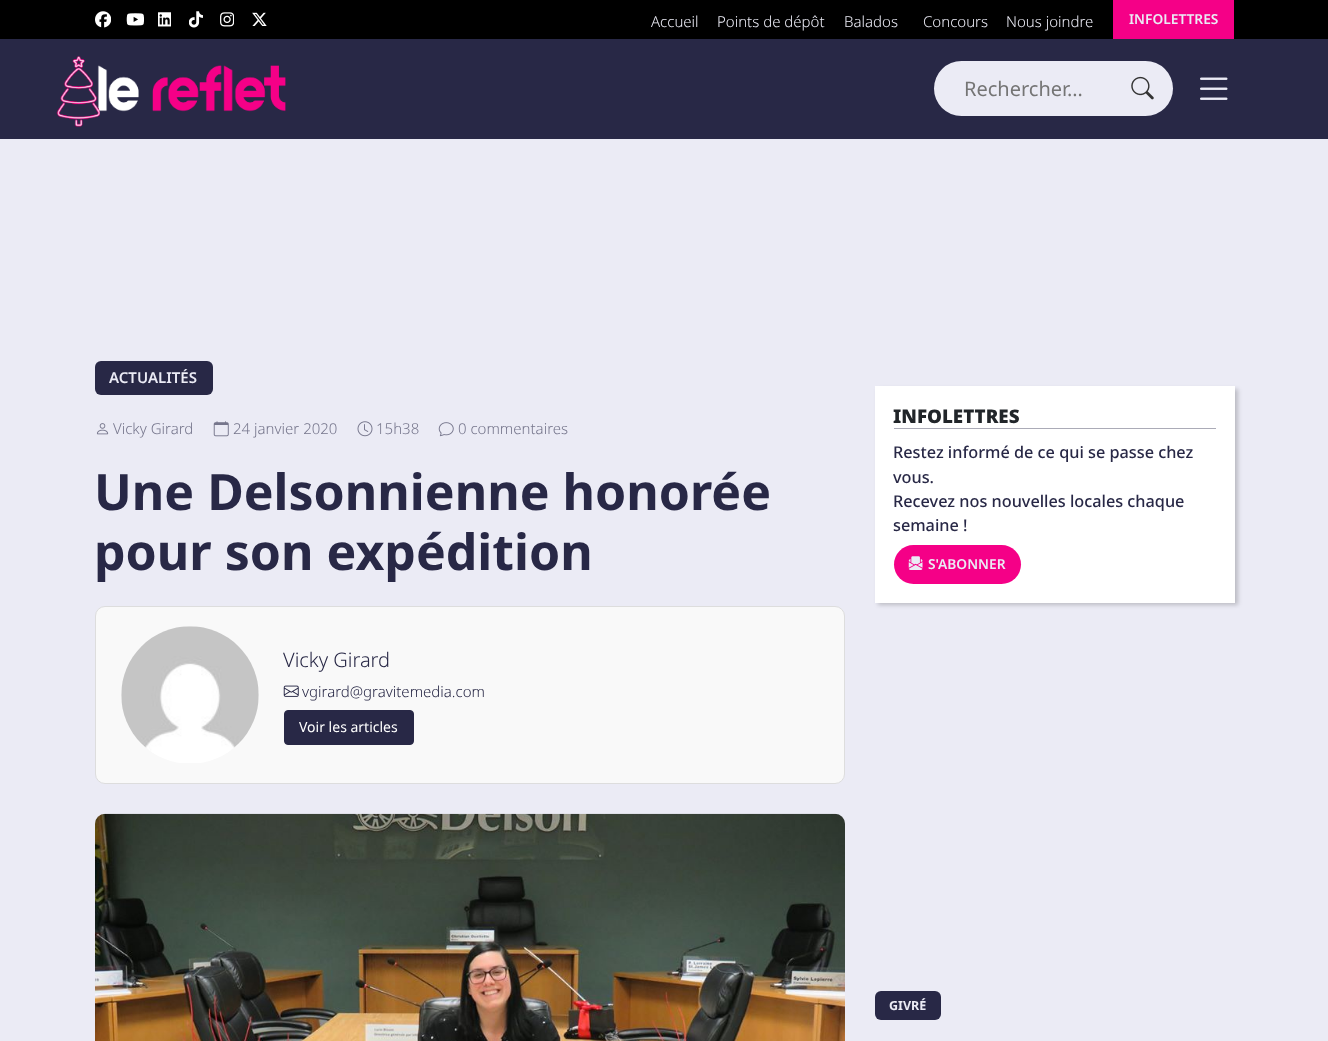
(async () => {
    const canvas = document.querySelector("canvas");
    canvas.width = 1328;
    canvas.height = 1041;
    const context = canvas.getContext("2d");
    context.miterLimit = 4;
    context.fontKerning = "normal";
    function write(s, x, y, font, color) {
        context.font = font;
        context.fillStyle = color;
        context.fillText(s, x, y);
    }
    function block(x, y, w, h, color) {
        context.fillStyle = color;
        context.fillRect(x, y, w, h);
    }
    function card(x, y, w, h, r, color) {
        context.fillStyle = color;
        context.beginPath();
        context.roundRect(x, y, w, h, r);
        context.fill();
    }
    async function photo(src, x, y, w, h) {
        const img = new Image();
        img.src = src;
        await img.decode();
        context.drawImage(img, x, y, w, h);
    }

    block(0, 0, 1328, 1041, "rgb(235, 235, 245)");
    block(0, 0, 1328, 39, "rgb(0, 0, 0)");
    await photo("media/1.png", 95, 11, 16, 17);
    await photo("media/2.png", 126, 13, 18, 13);
    await photo("media/3.png", 158, 12, 13, 15);
    await photo("media/4.png", 189, 11, 14, 17);
    await photo("media/5.png", 220, 12, 14, 15);
    await photo("media/6.png", 252, 12, 15, 14);
    write("Accueil", 651, 27, "300 15px Noto Sans", "rgb(235, 235, 245)");
    write("Points de dépôt", 717, 27, "300 15px Noto Sans", "rgb(235, 235, 245)");
    write("Balados", 844, 27, "300 15px Noto Sans", "rgb(235, 235, 245)");
    write("Concours", 923, 27, "300 15px Noto Sans", "rgb(235, 235, 245)");
    write("Nous joindre", 1006, 27, "300 15px Noto Sans", "rgb(235, 235, 245)");
    block(1113, 0, 121, 39, "rgb(245, 0, 135)");
    write("INFOLETTRES", 1129, 24, "600 13.75px Noto Sans", "rgb(235, 235, 245)");
    block(0, 39, 1328, 100, "rgb(40, 40, 70)");
    await photo("media/8.png", 97, 65, 189, 47);
    await photo("media/7.png", 56, 56, 44, 71);
    card(934, 61, 239, 55, 27.5, "rgb(235, 235, 245)");
    write("Rechercher…", 964, 96, "20px Noto Sans", "rgb(117, 117, 117)");
    await photo("media/9.png", 1131, 76, 23, 24);
    await photo("media/10.png", 1200, 77, 28, 23);
    card(95, 361, 118, 34, 6, "rgb(40, 40, 70)");
    write("ACTUALITÉS", 109, 383, "600 15px Noto Sans", "rgb(235, 235, 245)");
    await photo("media/11.png", 96, 423, 13, 12);
    write("Vicky Girard", 113, 434, "300 15px Noto Sans", "rgb(118, 118, 140)");
    await photo("media/12.png", 213, 421, 16, 16);
    write("24 janvier 2020", 233, 434, "300 15px Noto Sans", "rgb(118, 118, 140)");
    await photo("media/13.png", 357, 421, 16, 16);
    write("15h38", 376, 434, "300 15px Noto Sans", "rgb(118, 118, 140)");
    await photo("media/14.png", 438, 422, 16, 15);
    write("0 commentaires", 458, 434, "300 15px Noto Sans", "rgb(118, 118, 140)");
    write("Une Delsonnienne honorée", 94, 510, "bold 50px Noto Sans", "rgb(40, 40, 70)");
    write("pour son expédition", 94, 570, "bold 50px Noto Sans", "rgb(40, 40, 70)");
    context.fillStyle = "rgb(249, 249, 249)";
    context.beginPath();
    context.roundRect(95.5, 606.5, 749, 177, 9.5);
    context.fill();
    context.strokeStyle = "rgb(221, 221, 221)";
    context.stroke();
    await photo("media/15.png", 121, 626, 138, 137);
    write("Vicky Girard", 283, 667, "300 20px Noto Sans", "rgb(40, 40, 70)");
    await photo("media/16.png", 283, 685, 16, 12);
    write("vgirard@gravitemedia.com", 302, 697, "300 15px Noto Sans", "rgb(40, 40, 70)");
    context.beginPath();
    context.roundRect(284.5, 710.5, 129, 34, 3.5);
    context.fill();
    context.strokeStyle = "rgb(40, 40, 70)";
    context.stroke();
    write("Voir les articles", 299, 732, "14px Noto Sans", "rgb(255, 255, 255)");
    await photo("media/17.png", 95, 813, 750, 228);
    context.fillStyle = "rgba(0, 0, 0, 0.2)";
    context.filter = "blur(2px)";
    context.beginPath();
    context.rect(878, 389, 360, 216);
    context.fill();
    context.filter = "none";
    block(875, 386, 360, 217, "rgb(255, 255, 255)");
    block(894, 428, 322, 1, "rgb(171, 171, 183)");
    write("INFOLETTRES", 893, 423, "900 18.75px Noto Sans", "rgb(33, 37, 41)");
    write("Restez informé de ce qui se passe chez", 893, 458, "500 16.25px Noto Sans", "rgb(40, 40, 70)");
    write("vous.", 893, 483, "500 16.25px Noto Sans", "rgb(40, 40, 70)");
    write("Recevez nos nouvelles locales chaque", 893, 507, "500 16.25px Noto Sans", "rgb(40, 40, 70)");
    write("semaine !", 893, 531, "500 16.25px Noto Sans", "rgb(40, 40, 70)");
    card(894, 545, 127, 39, 19.5, "rgb(245, 0, 135)");
    await photo("media/18.png", 908, 556, 15, 14);
    write("S'ABONNER", 928, 569, "600 13.75px Noto Sans", "rgb(235, 235, 245)");
    card(875, 991, 66, 29, 6, "rgb(40, 40, 70)");
    write("GIVRÉ", 889, 1010, "bold 12.5px Noto Sans", "rgb(235, 235, 245)");
})();
